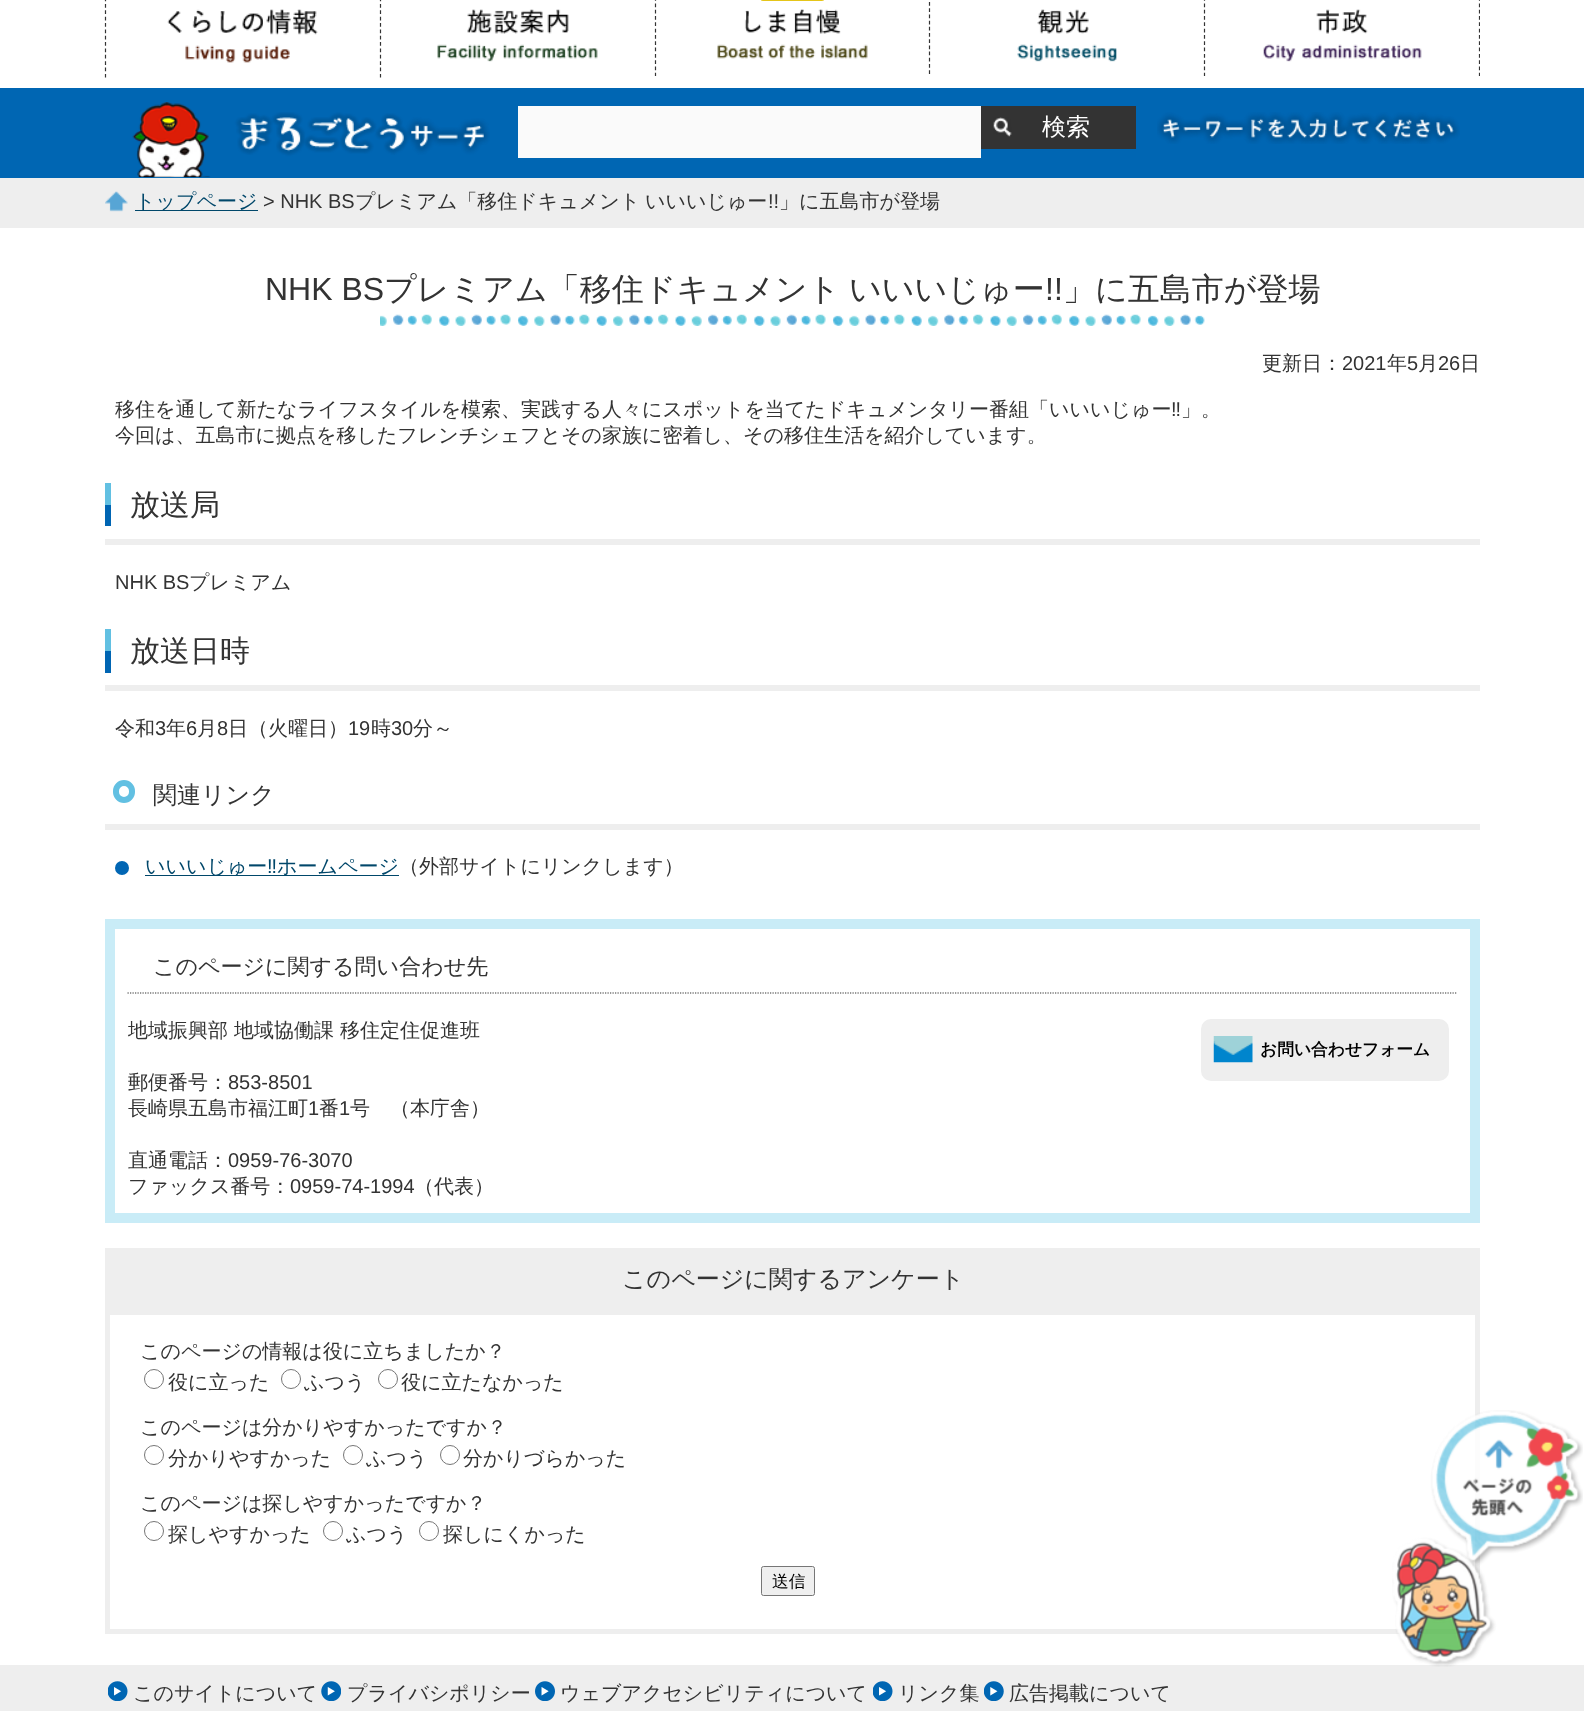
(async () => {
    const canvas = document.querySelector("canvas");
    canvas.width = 1584;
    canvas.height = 1711;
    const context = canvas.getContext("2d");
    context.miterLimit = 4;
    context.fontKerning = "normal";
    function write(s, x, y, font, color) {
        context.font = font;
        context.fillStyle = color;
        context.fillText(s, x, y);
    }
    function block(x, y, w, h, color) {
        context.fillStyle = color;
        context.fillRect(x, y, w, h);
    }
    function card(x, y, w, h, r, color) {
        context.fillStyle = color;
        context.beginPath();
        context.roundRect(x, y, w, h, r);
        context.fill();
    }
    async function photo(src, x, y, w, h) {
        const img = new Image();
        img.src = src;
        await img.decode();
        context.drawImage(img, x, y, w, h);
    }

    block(0, 0, 1584, 1711, "rgb(255, 255, 255)");
    context.beginPath();
    context.moveTo(105.5, -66);
    context.lineTo(105.5, 77.5);
    context.strokeStyle = "rgb(51, 51, 51)";
    context.lineWidth = 1.2;
    context.setLineDash([3.75, 2.61]);
    context.stroke();
    context.beginPath();
    context.moveTo(380.5, -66);
    context.lineTo(380.5, 77.5);
    context.stroke();
    await photo("media/1.png", 167, 9, 151, 54);
    context.beginPath();
    context.moveTo(655.5, -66);
    context.lineTo(655.5, 76);
    context.setLineDash([3.75, 2.56]);
    context.stroke();
    await photo("media/2.png", 437, 9, 161, 53);
    context.beginPath();
    context.moveTo(929.5, -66);
    context.lineTo(929.5, 74);
    context.setLineDash([3.75, 2.44]);
    context.stroke();
    await photo("media/3.png", 761, 0, 63, 1);
    await photo("media/4.png", 717, 9, 151, 50);
    context.beginPath();
    context.moveTo(1204.5, -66);
    context.lineTo(1204.5, 76);
    context.setLineDash([3.75, 2.56]);
    context.stroke();
    await photo("media/5.png", 1017, 9, 100, 53);
    context.save();
    context.beginPath();
    context.rect(106, 0, 1374, 78);
    context.clip();
    context.beginPath();
    context.moveTo(1479.5, -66);
    context.lineTo(1479.5, 76);
    context.stroke();
    context.restore();
    await photo("media/6.png", 1263, 9, 159, 53);
    block(0, 88, 1584, 90, "rgb(0, 102, 179)");
    await photo("media/7.png", 132, 102, 358, 76);
    block(518, 106, 463, 52, "rgb(250, 250, 250)");
    block(981, 106, 155, 43, "rgb(51, 51, 51)");
    await photo("media/8.png", 993, 117, 19, 20);
    write("検索", 1042, 135, "500 24px WenQuanYi Zen Hei", "rgb(255, 255, 255)");
    await photo("media/9.png", 1157, 112, 303, 32);
    block(0, 178, 1584, 50, "rgb(238, 238, 238)");
    await photo("media/10.png", 105, 191, 23, 21);
    block(135, 210, 123, 1, "rgb(0, 71, 106)");
    write("トップページ", 135, 208, "500 20px WenQuanYi Zen Hei", "rgb(0, 71, 106)");
    write("> NHK BS", 263, 208, "20px Liberation Sans", "rgb(51, 51, 51)");
    write("プレミアム「移住ドキュメント", 355, 208, "500 20px WenQuanYi Zen Hei", "rgb(51, 51, 51)");
    write("いいいじゅー", 645, 208, "500 20px WenQuanYi Zen Hei", "rgb(51, 51, 51)");
    write("!!", 768, 208, "20px Liberation Sans", "rgb(51, 51, 51)");
    write("」に五島市が登場", 779, 208, "500 20px WenQuanYi Zen Hei", "rgb(51, 51, 51)");
    write("NHK BS", 265, 300, "32px Liberation Sans", "rgb(51, 51, 51)");
    write("プレミアム「移住ドキュメント", 384, 300, "500 32px WenQuanYi Zen Hei", "rgb(51, 51, 51)");
    write("いいいじゅー", 849, 300, "500 32px WenQuanYi Zen Hei", "rgb(51, 51, 51)");
    write("!!", 1045, 300, "32px Liberation Sans", "rgb(51, 51, 51)");
    write("」に五島市が登場", 1063, 300, "500 32px WenQuanYi Zen Hei", "rgb(51, 51, 51)");
    await photo("media/11.png", 380, 314, 825, 12);
    write("更新日：", 1262, 370, "500 20px WenQuanYi Zen Hei", "rgb(51, 51, 51)");
    write("2021", 1342, 370, "20px Liberation Sans", "rgb(51, 51, 51)");
    write("年", 1387, 370, "500 20px WenQuanYi Zen Hei", "rgb(51, 51, 51)");
    write("5", 1407, 370, "20px Liberation Sans", "rgb(51, 51, 51)");
    write("月", 1418, 370, "500 20px WenQuanYi Zen Hei", "rgb(51, 51, 51)");
    write("26", 1438, 370, "20px Liberation Sans", "rgb(51, 51, 51)");
    write("日", 1460, 370, "500 20px WenQuanYi Zen Hei", "rgb(51, 51, 51)");
    write("移住を通して新たなライフスタイルを模索、実践する人々にスポットを当てたドキュメンタリー番組「いいいじゅー", 115, 416, "500 20px WenQuanYi Zen Hei", "rgb(51, 51, 51)");
    write("‼", 1171, 416, "20px Liberation Sans", "rgb(51, 51, 51)");
    write("」。", 1181, 416, "500 20px WenQuanYi Zen Hei", "rgb(51, 51, 51)");
    write("今回は、五島市に拠点を移したフレンチシェフとその家族に密着し、その移住生活を紹介しています。", 115, 442, "500 20px WenQuanYi Zen Hei", "rgb(51, 51, 51)");
    block(105, 539, 1375, 6, "rgb(238, 238, 238)");
    block(105, 483, 6, 22, "rgb(98, 192, 226)");
    block(105, 505, 6, 21, "rgb(0, 101, 179)");
    write("放送局", 130, 515, "500 30px WenQuanYi Zen Hei", "rgb(51, 51, 51)");
    write("NHK BS", 115, 589, "20px Liberation Sans", "rgb(51, 51, 51)");
    write("プレミアム", 189, 589, "500 20px WenQuanYi Zen Hei", "rgb(51, 51, 51)");
    block(105, 685, 1375, 6, "rgb(238, 238, 238)");
    block(105, 629, 6, 22, "rgb(98, 192, 226)");
    block(105, 651, 6, 22, "rgb(0, 101, 179)");
    write("放送日時", 130, 661, "500 30px WenQuanYi Zen Hei", "rgb(51, 51, 51)");
    write("令和", 115, 735, "500 20px WenQuanYi Zen Hei", "rgb(51, 51, 51)");
    write("3", 155, 735, "20px Liberation Sans", "rgb(51, 51, 51)");
    write("年", 166, 735, "500 20px WenQuanYi Zen Hei", "rgb(51, 51, 51)");
    write("6", 186, 735, "20px Liberation Sans", "rgb(51, 51, 51)");
    write("月", 197, 735, "500 20px WenQuanYi Zen Hei", "rgb(51, 51, 51)");
    write("8", 217, 735, "20px Liberation Sans", "rgb(51, 51, 51)");
    write("日（火曜日）", 228, 735, "500 20px WenQuanYi Zen Hei", "rgb(51, 51, 51)");
    write("19", 348, 735, "20px Liberation Sans", "rgb(51, 51, 51)");
    write("時", 371, 735, "500 20px WenQuanYi Zen Hei", "rgb(51, 51, 51)");
    write("30", 391, 735, "20px Liberation Sans", "rgb(51, 51, 51)");
    write("分～", 413, 735, "500 20px WenQuanYi Zen Hei", "rgb(51, 51, 51)");
    block(105, 824, 1375, 6, "rgb(238, 238, 238)");
    context.beginPath();
    context.roundRect(116, 783, 16, 17, 8);
    context.strokeStyle = "rgb(98, 192, 226)";
    context.lineWidth = 6;
    context.setLineDash([]);
    context.stroke();
    write("関連リンク", 153, 803, "500 24px WenQuanYi Zen Hei", "rgb(51, 51, 51)");
    context.fillStyle = "rgb(1, 102, 180)";
    context.beginPath();
    context.arc(122, 868, 7, 0, Math.PI * 2);
    context.fill();
    block(145, 875, 254, 1, "rgb(0, 71, 106)");
    write("いいいじゅー", 145, 873, "500 20px WenQuanYi Zen Hei", "rgb(0, 71, 106)");
    write("‼", 267, 873, "20px Liberation Sans", "rgb(0, 71, 106)");
    write("ホームページ", 277, 873, "500 20px WenQuanYi Zen Hei", "rgb(0, 71, 106)");
    write("（外部サイトにリンクします）", 399, 873, "500 20px WenQuanYi Zen Hei", "rgb(51, 51, 51)");
    block(105, 919, 1375, 304, "rgb(201, 236, 247)");
    block(115, 929, 1355, 284, "rgb(255, 255, 255)");
    context.beginPath();
    context.moveTo(127.5, 993);
    context.lineTo(1457.5, 993);
    context.strokeStyle = "rgb(51, 51, 51)";
    context.lineWidth = 1.2;
    context.setLineDash([1.25, 1.25]);
    context.stroke();
    write("このページに関する問い合わせ先", 153, 974, "500 22px WenQuanYi Zen Hei", "rgb(51, 51, 51)");
    write("地域振興部 地域協働課 移住定住促進班", 128, 1037, "500 20px WenQuanYi Zen Hei", "rgb(51, 51, 51)");
    card(1201, 1019, 248, 62, 10, "rgb(238, 238, 238)");
    await photo("media/12.png", 1213, 1036, 40, 27);
    write("お問い合わせフォーム", 1260, 1055, "bold 16.75px WenQuanYi Zen Hei", "rgb(0, 0, 0)");
    write("郵便番号：", 128, 1089, "500 20px WenQuanYi Zen Hei", "rgb(51, 51, 51)");
    write("853-8501", 228, 1089, "20px Liberation Sans", "rgb(51, 51, 51)");
    write("長崎県五島市福江町", 128, 1115, "500 20px WenQuanYi Zen Hei", "rgb(51, 51, 51)");
    write("1", 308, 1115, "20px Liberation Sans", "rgb(51, 51, 51)");
    write("番", 319, 1115, "500 20px WenQuanYi Zen Hei", "rgb(51, 51, 51)");
    write("1", 339, 1115, "20px Liberation Sans", "rgb(51, 51, 51)");
    write("号　（本庁舎）", 350, 1115, "500 20px WenQuanYi Zen Hei", "rgb(51, 51, 51)");
    write("直通電話：", 128, 1167, "500 20px WenQuanYi Zen Hei", "rgb(51, 51, 51)");
    write("0959-76-3070", 228, 1167, "20px Liberation Sans", "rgb(51, 51, 51)");
    write("ファックス番号：", 128, 1193, "500 20px WenQuanYi Zen Hei", "rgb(51, 51, 51)");
    write("0959-74-1994", 290, 1193, "20px Liberation Sans", "rgb(51, 51, 51)");
    write("（代表）", 414, 1193, "500 20px WenQuanYi Zen Hei", "rgb(51, 51, 51)");
    context.strokeStyle = "rgb(238, 238, 238)";
    context.lineWidth = 5;
    context.setLineDash([]);
    context.strokeRect(107.5, 1250.5, 1370, 381);
    block(110, 1253, 1365, 62, "rgb(238, 238, 238)");
    write("このページに関するアンケート", 622, 1287, "500 24px WenQuanYi Zen Hei", "rgb(51, 51, 51)");
    write("このページの情報は役に立ちましたか？", 140, 1358, "500 20px WenQuanYi Zen Hei", "rgb(51, 51, 51)");
    context.beginPath();
    context.arc(154, 1379, 9.5, 0, Math.PI * 2);
    context.strokeStyle = "rgb(118, 118, 118)";
    context.lineWidth = 1;
    context.stroke();
    write("役に立った", 168, 1389, "500 20px WenQuanYi Zen Hei", "rgb(51, 51, 51)");
    context.beginPath();
    context.arc(291, 1379, 9.5, 0, Math.PI * 2);
    context.stroke();
    write("ふつう", 304, 1389, "500 20px WenQuanYi Zen Hei", "rgb(51, 51, 51)");
    context.beginPath();
    context.arc(388, 1379, 9.5, 0, Math.PI * 2);
    context.stroke();
    write("役に立たなかった", 401, 1389, "500 20px WenQuanYi Zen Hei", "rgb(51, 51, 51)");
    write("このページは分かりやすかったですか？", 140, 1434, "500 20px WenQuanYi Zen Hei", "rgb(51, 51, 51)");
    context.beginPath();
    context.arc(154, 1455, 9.5, 0, Math.PI * 2);
    context.stroke();
    write("分かりやすかった", 168, 1465, "500 20px WenQuanYi Zen Hei", "rgb(51, 51, 51)");
    context.beginPath();
    context.arc(353, 1455, 9.5, 0, Math.PI * 2);
    context.stroke();
    write("ふつう", 366, 1465, "500 20px WenQuanYi Zen Hei", "rgb(51, 51, 51)");
    context.beginPath();
    context.arc(450, 1455, 9.5, 0, Math.PI * 2);
    context.stroke();
    write("分かりづらかった", 463, 1465, "500 20px WenQuanYi Zen Hei", "rgb(51, 51, 51)");
    write("このページは探しやすかったですか？", 140, 1510, "500 20px WenQuanYi Zen Hei", "rgb(51, 51, 51)");
    context.beginPath();
    context.arc(154, 1531, 9.5, 0, Math.PI * 2);
    context.stroke();
    write("探しやすかった", 168, 1541, "500 20px WenQuanYi Zen Hei", "rgb(51, 51, 51)");
    context.beginPath();
    context.arc(333, 1531, 9.5, 0, Math.PI * 2);
    context.stroke();
    write("ふつう", 346, 1541, "500 20px WenQuanYi Zen Hei", "rgb(51, 51, 51)");
    context.beginPath();
    context.arc(429, 1531, 9.5, 0, Math.PI * 2);
    context.stroke();
    write("探しにくかった", 443, 1541, "500 20px WenQuanYi Zen Hei", "rgb(51, 51, 51)");
    context.fillStyle = "rgb(239, 239, 239)";
    context.beginPath();
    context.roundRect(761.5, 1566.5, 53, 29, 2);
    context.fill();
    context.stroke();
    write("送信", 772, 1587, "500 16.75px WenQuanYi Zen Hei", "rgb(0, 0, 0)");
    block(0, 1665, 1584, 46, "rgb(238, 238, 238)");
    await photo("media/13.png", 1392, 1410, 191, 257);
    await photo("media/14.png", 108, 1681, 20, 20);
    write("このサイトについて", 133, 1700, "500 20px WenQuanYi Zen Hei", "rgb(51, 51, 51)");
    await photo("media/15.png", 321, 1681, 20, 20);
    write("プライバシポリシー", 347, 1700, "500 20px WenQuanYi Zen Hei", "rgb(51, 51, 51)");
    await photo("media/16.png", 535, 1681, 20, 20);
    write("ウェブアクセシビリティについて", 560, 1700, "500 20px WenQuanYi Zen Hei", "rgb(51, 51, 51)");
    await photo("media/14.png", 873, 1681, 20, 20);
    write("リンク集", 898, 1700, "500 20px WenQuanYi Zen Hei", "rgb(51, 51, 51)");
    await photo("media/17.png", 984, 1681, 20, 20);
    write("広告掲載について", 1009, 1700, "500 20px WenQuanYi Zen Hei", "rgb(51, 51, 51)");
})();
